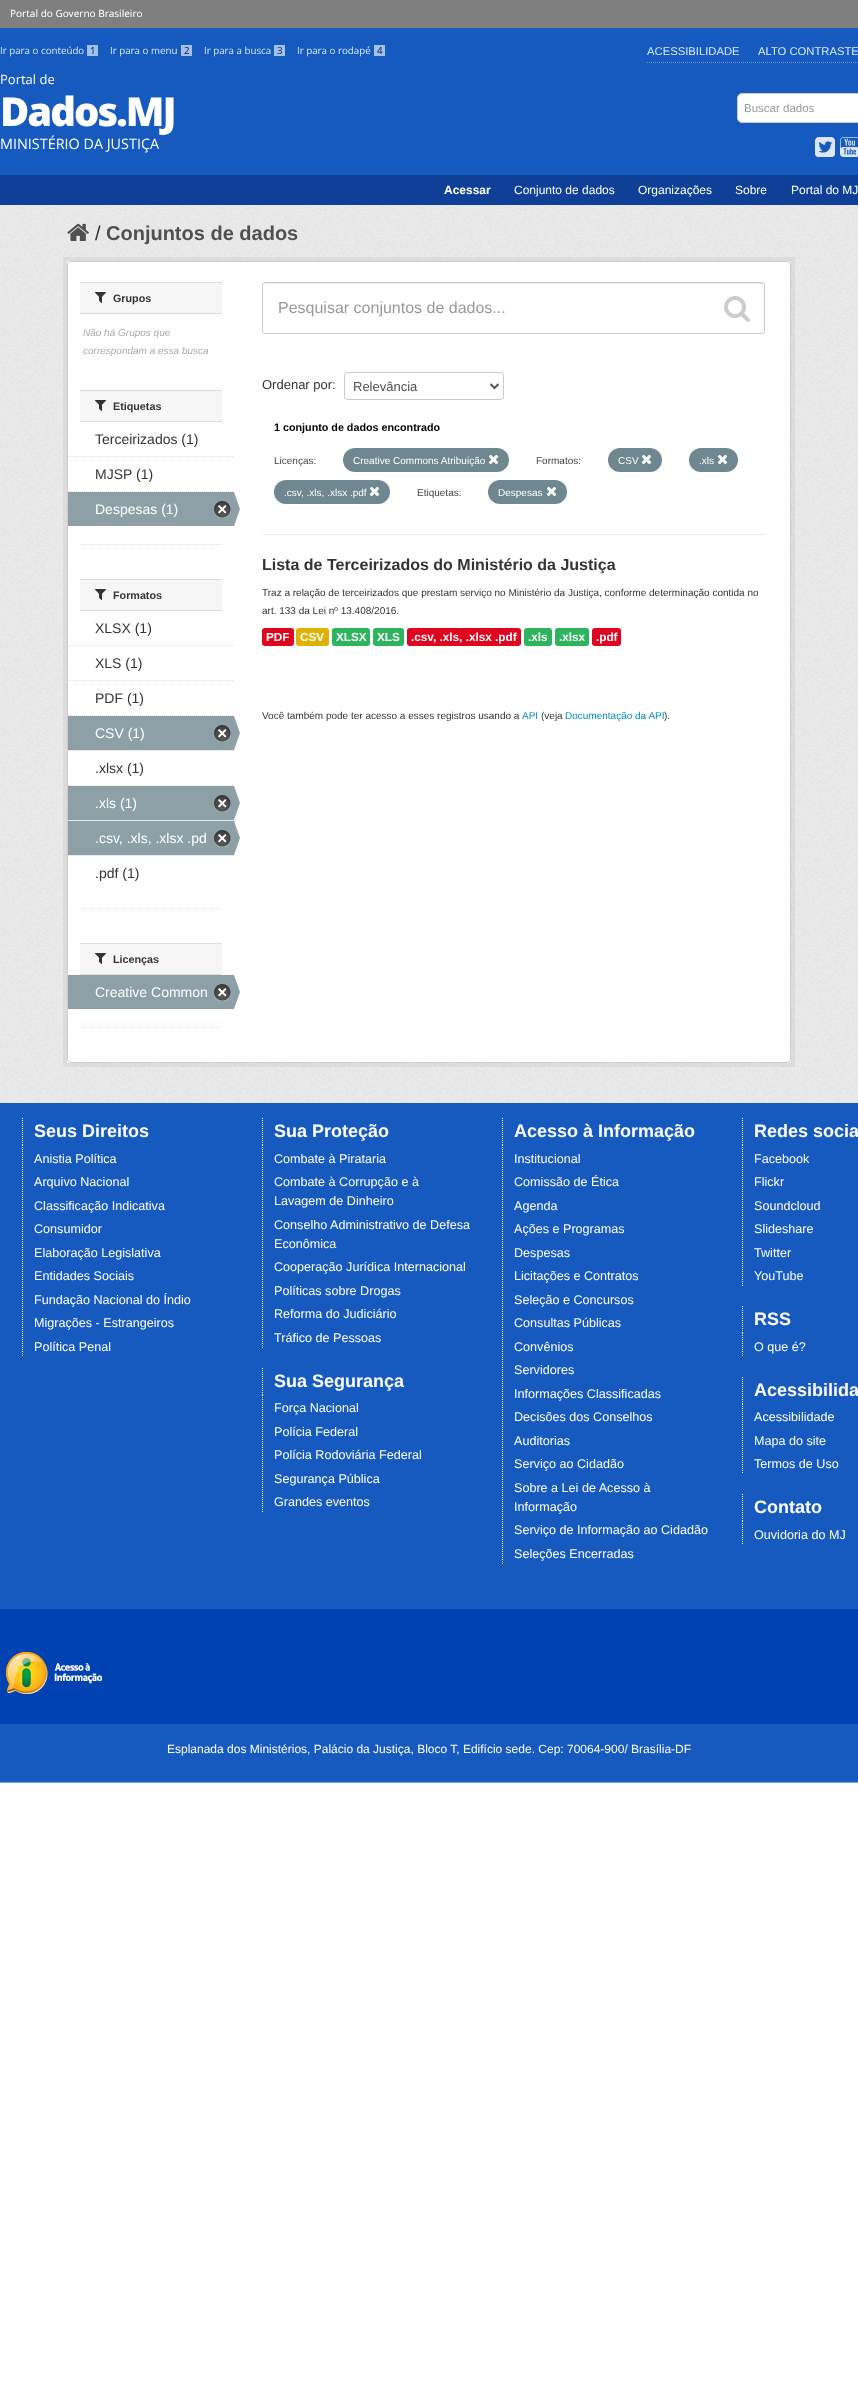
(async () => {
    const canvas = document.querySelector("canvas");
    canvas.width = 858;
    canvas.height = 2386;
    const context = canvas.getContext("2d");
    context.miterLimit = 4;
    context.fontKerning = "normal";
    function write(s, x, y, font, color) {
        context.font = font;
        context.fillStyle = color;
        context.fillText(s, x, y);
    }
    function block(x, y, w, h, color) {
        context.fillStyle = color;
        context.fillRect(x, y, w, h);
    }
    function card(x, y, w, h, r, color) {
        context.fillStyle = color;
        context.beginPath();
        context.roundRect(x, y, w, h, r);
        context.fill();
    }
    async function photo(src, x, y, w, h) {
        const img = new Image();
        img.src = src;
        await img.decode();
        context.drawImage(img, x, y, w, h);
    }

    block(0, 0, 858, 2386, "rgb(255, 255, 255)");
    block(0, 28, 858, 147, "rgb(22, 89, 191)");
    block(0, 0, 858, 28, "rgb(127, 127, 127)");
    write("Portal do Governo Brasileiro", 10, 17, "10px Noto Sans", "rgb(255, 255, 255)");
    write("Ir para o conteúdo", 0, 54, "9.75px Open Sans", "rgb(220, 236, 255)");
    block(87, 45, 11, 11, "rgb(161, 192, 236)");
    write("1", 90, 54, "9.75px Open Sans", "rgb(10, 24, 87)");
    write("Ir para o menu", 110, 54, "9.75px Open Sans", "rgb(220, 236, 255)");
    block(181, 45, 11, 11, "rgb(161, 192, 236)");
    write("2", 184, 54, "9.75px Open Sans", "rgb(10, 24, 87)");
    write("Ir para a busca", 204, 54, "9.75px Open Sans", "rgb(220, 236, 255)");
    block(274, 45, 11, 11, "rgb(161, 192, 236)");
    write("3", 277, 54, "9.75px Open Sans", "rgb(10, 24, 87)");
    write("Ir para o rodapé", 297, 54, "9.75px Open Sans", "rgb(220, 236, 255)");
    block(374, 45, 11, 11, "rgb(161, 192, 236)");
    write("4", 377, 54, "9.75px Open Sans", "rgb(10, 24, 87)");
    context.beginPath();
    context.moveTo(647, 62.5);
    context.lineTo(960, 62.5);
    context.strokeStyle = "rgb(104, 147, 203)";
    context.setLineDash([1, 1]);
    context.stroke();
    write("ACESSIBILIDADE", 647, 55, "11.25px Liberation Sans", "rgb(220, 236, 255)");
    write("ALTO CONTRASTE", 758, 55, "11.25px Liberation Sans", "rgb(220, 236, 255)");
    write("Portal de", 0, 84, "13px Open Sans", "rgb(255, 255, 255)");
    context.letterSpacing = "-2px";
    write("Dados.MJ", 0, 126, "800 40px Open Sans", "rgb(255, 255, 255)");
    context.letterSpacing = "0px";
    write("MINISTÉRIO DA JUSTIÇA", 0, 149, "14.4px Open Sans", "rgb(255, 255, 255)");
    context.beginPath();
    context.roundRect(737.5, 93.5, 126, 29, 4.5);
    context.fill();
    context.strokeStyle = "rgb(204, 204, 204)";
    context.setLineDash([]);
    context.stroke();
    write("Buscar dados", 744, 112, "11.5px Liberation Sans", "rgb(153, 153, 153)");
    await photo("media/1.png", 815, 137, 20, 20);
    await photo("media/2.png", 840, 137, 18, 20);
    block(0, 175, 858, 30, "rgb(15, 64, 152)");
    write("Acessar", 444, 194, "bold 12px Liberation Sans", "rgb(255, 255, 255)");
    write("Conjunto de dados", 514, 194, "12px Liberation Sans", "rgb(255, 255, 255)");
    write("Organizações", 638, 194, "12px Liberation Sans", "rgb(255, 255, 255)");
    write("Sobre", 735, 194, "12px Liberation Sans", "rgb(255, 255, 255)");
    write("Portal do MJ", 791, 194, "12px Liberation Sans", "rgb(255, 255, 255)");
    block(0, 205, 858, 898, "rgb(238, 238, 238)");
    await photo("media/3.png", 0, 205, 858, 898);
    await photo("media/4.png", 67, 223, 22, 18);
    write("/", 95, 240, "20px Liberation Sans", "rgb(51, 51, 51)");
    write("Conjuntos de dados", 106, 240, "bold 20px Liberation Sans", "rgb(80, 80, 80)");
    context.strokeStyle = "rgba(0, 0, 0, 0.05)";
    context.lineWidth = 4;
    context.strokeRect(65, 259, 728, 806);
    card(67, 261, 724, 802, 4, "rgb(255, 255, 255)");
    block(67, 261, 3, 802, "rgb(255, 255, 255)");
    context.beginPath();
    context.roundRect(67.5, 261.5, 723, 801, 3.5);
    context.strokeStyle = "rgb(204, 204, 204)";
    context.lineWidth = 1;
    context.stroke();
    block(80, 283, 142, 30, "rgb(246, 246, 246)");
    block(80, 282, 142, 1, "rgb(221, 221, 221)");
    block(80, 313, 142, 1, "rgb(221, 221, 221)");
    await photo("media/5.png", 95, 292, 11, 11);
    write("Grupos", 113, 302, "bold 10.75px Liberation Sans", "rgb(51, 51, 51)");
    write("Não há Grupos que", 83, 336, "italic 10px Liberation Sans", "rgb(170, 170, 170)");
    write("correspondam a essa busca", 83, 354, "italic 10px Liberation Sans", "rgb(170, 170, 170)");
    block(80, 391, 142, 30, "rgb(246, 246, 246)");
    block(80, 390, 142, 1, "rgb(221, 221, 221)");
    block(80, 421, 142, 1, "rgb(221, 221, 221)");
    await photo("media/5.png", 95, 400, 11, 11);
    write("Etiquetas", 113, 410, "bold 10.75px Liberation Sans", "rgb(51, 51, 51)");
    context.beginPath();
    context.moveTo(68, 456.5);
    context.lineTo(234, 456.5);
    context.strokeStyle = "rgb(221, 221, 221)";
    context.setLineDash([1, 1]);
    context.stroke();
    write("Terceirizados (1)", 95, 444, "14px Liberation Sans", "rgb(51, 51, 51)");
    context.beginPath();
    context.moveTo(68, 491.5);
    context.lineTo(234, 491.5);
    context.stroke();
    write("MJSP (1)", 95, 479, "14px Liberation Sans", "rgb(51, 51, 51)");
    block(68, 492, 166, 34, "rgb(140, 160, 166)");
    write("Despesas (1)", 95, 514, "14px Liberation Sans", "rgb(255, 255, 255)");
    await photo("media/6.png", 214, 501, 17, 17);
    await photo("media/7.png", 234, 492, 6, 34);
    context.beginPath();
    context.moveTo(80, 544.5);
    context.lineTo(222, 544.5);
    context.stroke();
    block(80, 580, 142, 30, "rgb(246, 246, 246)");
    block(80, 579, 142, 1, "rgb(221, 221, 221)");
    block(80, 610, 142, 1, "rgb(221, 221, 221)");
    await photo("media/5.png", 95, 589, 11, 11);
    write("Formatos", 113, 599, "bold 10.75px Liberation Sans", "rgb(51, 51, 51)");
    context.beginPath();
    context.moveTo(68, 645.5);
    context.lineTo(234, 645.5);
    context.stroke();
    write("XLSX (1)", 95, 633, "14px Liberation Sans", "rgb(51, 51, 51)");
    context.beginPath();
    context.moveTo(68, 680.5);
    context.lineTo(234, 680.5);
    context.stroke();
    write("XLS (1)", 95, 668, "14px Liberation Sans", "rgb(51, 51, 51)");
    context.beginPath();
    context.moveTo(68, 715.5);
    context.lineTo(234, 715.5);
    context.stroke();
    write("PDF (1)", 95, 703, "14px Liberation Sans", "rgb(51, 51, 51)");
    block(69, 750, 165, 1, "rgb(246, 246, 246)");
    context.beginPath();
    context.moveTo(68, 750.5);
    context.lineTo(234, 750.5);
    context.stroke();
    block(68, 716, 166, 34, "rgb(140, 160, 166)");
    write("CSV (1)", 95, 738, "14px Liberation Sans", "rgb(255, 255, 255)");
    await photo("media/6.png", 214, 725, 17, 17);
    await photo("media/7.png", 234, 716, 6, 34);
    context.beginPath();
    context.moveTo(68, 785.5);
    context.lineTo(234, 785.5);
    context.stroke();
    write(".xlsx (1)", 95, 773, "14px Liberation Sans", "rgb(51, 51, 51)");
    block(69, 820, 165, 1, "rgb(246, 246, 246)");
    context.beginPath();
    context.moveTo(68, 820.5);
    context.lineTo(234, 820.5);
    context.stroke();
    block(68, 786, 166, 34, "rgb(140, 160, 166)");
    write(".xls (1)", 95, 808, "14px Liberation Sans", "rgb(255, 255, 255)");
    await photo("media/6.png", 214, 795, 17, 17);
    await photo("media/7.png", 234, 786, 6, 34);
    block(69, 855, 165, 1, "rgb(246, 246, 246)");
    context.beginPath();
    context.moveTo(68, 855.5);
    context.lineTo(234, 855.5);
    context.stroke();
    block(68, 821, 166, 34, "rgb(140, 160, 166)");
    write(".csv, .xls, .xlsx .pd", 95, 843, "14px Liberation Sans", "rgb(255, 255, 255)");
    await photo("media/6.png", 214, 830, 17, 17);
    await photo("media/7.png", 234, 821, 6, 34);
    write(".pdf (1)", 95, 878, "14px Liberation Sans", "rgb(51, 51, 51)");
    context.beginPath();
    context.moveTo(80, 908.5);
    context.lineTo(222, 908.5);
    context.stroke();
    block(80, 944, 142, 30, "rgb(246, 246, 246)");
    block(80, 943, 142, 1, "rgb(221, 221, 221)");
    block(80, 974, 142, 1, "rgb(221, 221, 221)");
    await photo("media/5.png", 95, 953, 11, 11);
    write("Licenças", 113, 963, "bold 10.75px Liberation Sans", "rgb(51, 51, 51)");
    block(68, 975, 166, 34, "rgb(140, 160, 166)");
    write("Creative Common", 95, 997, "14px Liberation Sans", "rgb(255, 255, 255)");
    await photo("media/6.png", 214, 984, 17, 17);
    await photo("media/7.png", 234, 975, 6, 34);
    context.beginPath();
    context.moveTo(80, 1027.5);
    context.lineTo(222, 1027.5);
    context.stroke();
    context.beginPath();
    context.moveTo(262, 534.5);
    context.lineTo(765, 534.5);
    context.stroke();
    context.fillStyle = "rgb(236, 236, 236)";
    context.beginPath();
    context.moveTo(265, 284);
    context.lineTo(762, 284);
    context.bezierCurveTo(763, 284, 764, 285, 764, 286);
    context.bezierCurveTo(764, 285, 764, 283, 762, 283);
    context.lineTo(265, 283);
    context.lineTo(263, 284);
    context.lineTo(263, 286);
    context.bezierCurveTo(263, 285, 264, 284, 265, 284);
    context.closePath();
    context.fill();
    context.beginPath();
    context.roundRect(262.5, 282.5, 502, 51, 2.5);
    context.strokeStyle = "rgb(204, 204, 204)";
    context.setLineDash([]);
    context.stroke();
    write("Pesquisar conjuntos de dados...", 278, 313, "16px Liberation Sans", "rgb(153, 153, 153)");
    await photo("media/8.png", 724, 296, 26, 26);
    write("Ordenar por:", 262, 389, "13px Liberation Sans", "rgb(51, 51, 51)");
    context.beginPath();
    context.roundRect(344.5, 372.5, 159, 27, 2.5);
    context.stroke();
    context.beginPath();
    context.moveTo(490.5, 384);
    context.lineTo(494.5, 388);
    context.lineTo(498.5, 384);
    context.strokeStyle = "rgb(85, 85, 85)";
    context.lineWidth = 2;
    context.stroke();
    write("Relevância", 353, 391, "13px Liberation Sans", "rgb(80, 80, 80)");
    write("1 conjunto de dados encontrado", 274, 431, "bold 10.75px Liberation Sans", "rgb(0, 0, 0)");
    write("Licenças:", 274, 464, "10px Liberation Sans", "rgb(68, 68, 68)");
    card(343, 448, 166, 24, 12, "rgb(111, 136, 144)");
    write("Creative Commons Atribuição", 353, 464, "10px Liberation Sans", "rgb(255, 255, 255)");
    await photo("media/9.png", 488, 454, 11, 11);
    write("Formatos:", 536, 464, "10px Liberation Sans", "rgb(68, 68, 68)");
    card(608, 448, 54, 24, 12, "rgb(111, 136, 144)");
    write("CSV", 618, 464, "10px Liberation Sans", "rgb(255, 255, 255)");
    await photo("media/9.png", 641, 454, 11, 11);
    card(689, 448, 49, 24, 12, "rgb(111, 136, 144)");
    write(".xls", 699, 464, "10px Liberation Sans", "rgb(255, 255, 255)");
    await photo("media/9.png", 717, 454, 11, 11);
    card(274, 480, 116, 24, 12, "rgb(111, 136, 144)");
    write(".csv, .xls, .xlsx .pdf", 284, 496, "10px Liberation Sans", "rgb(255, 255, 255)");
    await photo("media/9.png", 369, 486, 11, 11);
    write("Etiquetas:", 417, 496, "10px Liberation Sans", "rgb(68, 68, 68)");
    card(488, 480, 79, 24, 12, "rgb(111, 136, 144)");
    write("Despesas", 498, 496, "10px Liberation Sans", "rgb(255, 255, 255)");
    await photo("media/9.png", 546, 486, 11, 11);
    write("Lista de Terceirizados do Ministério da Justiça", 262, 570, "bold 16px Liberation Sans", "rgb(51, 51, 51)");
    write("Traz a relação de terceirizados que prestam serviço no Ministério da Justiça, conforme determinação contida no", 262, 596, "10px Liberation Sans", "rgb(51, 51, 51)");
    write("art. 133 da Lei nº 13.408/2016.", 262, 614, "10px Liberation Sans", "rgb(51, 51, 51)");
    card(262, 628, 32, 18, 3, "rgb(224, 5, 30)");
    write("PDF", 266, 641, "bold 11.75px Liberation Sans", "rgb(255, 255, 255)");
    card(296, 628, 33, 18, 3, "rgb(223, 177, 0)");
    write("CSV", 300, 641, "bold 11.75px Liberation Sans", "rgb(255, 255, 255)");
    card(332, 628, 38, 18, 3, "rgb(45, 181, 93)");
    write("XLSX", 336, 641, "bold 11.75px Liberation Sans", "rgb(255, 255, 255)");
    card(373, 628, 31, 18, 3, "rgb(45, 181, 93)");
    write("XLS", 377, 641, "bold 11.75px Liberation Sans", "rgb(255, 255, 255)");
    card(407, 628, 114, 18, 3, "rgb(224, 5, 30)");
    write(".csv, .xls, .xlsx .pdf", 411, 641, "bold 11.75px Liberation Sans", "rgb(255, 255, 255)");
    card(524, 628, 28, 18, 3, "rgb(45, 181, 93)");
    write(".xls", 528, 641, "bold 11.75px Liberation Sans", "rgb(255, 255, 255)");
    card(555, 628, 34, 18, 3, "rgb(45, 181, 93)");
    write(".xlsx", 559, 641, "bold 11.75px Liberation Sans", "rgb(255, 255, 255)");
    card(592, 628, 29, 18, 3, "rgb(224, 5, 30)");
    write(".pdf", 596, 641, "bold 11.75px Liberation Sans", "rgb(255, 255, 255)");
    write("Você também pode ter acesso a esses registros usando a", 262, 719, "10px Liberation Sans", "rgb(51, 51, 51)");
    write("API", 522, 719, "10px Liberation Sans", "rgb(0, 136, 204)");
    write("(veja", 541, 719, "10px Liberation Sans", "rgb(51, 51, 51)");
    write("Documentação da API", 565, 719, "10px Liberation Sans", "rgb(0, 136, 204)");
    write(").", 664, 719, "10px Liberation Sans", "rgb(51, 51, 51)");
    block(0, 1103, 858, 679, "rgb(22, 89, 191)");
    block(0, 1782, 858, 1, "rgb(115, 170, 226)");
    context.beginPath();
    context.moveTo(22.5, 1118);
    context.lineTo(22.5, 1145);
    context.strokeStyle = "rgb(255, 255, 255)";
    context.lineWidth = 1;
    context.setLineDash([1, 1]);
    context.stroke();
    write("Seus Direitos", 34, 1137, "bold 18px Liberation Sans", "rgb(255, 255, 255)");
    context.beginPath();
    context.moveTo(22.5, 1145);
    context.lineTo(22.5, 1357);
    context.stroke();
    write("Anistia Política", 34, 1163, "12.6px Liberation Sans", "rgb(255, 255, 255)");
    write("Arquivo Nacional", 34, 1186, "12.6px Liberation Sans", "rgb(255, 255, 255)");
    write("Classificação Indicativa", 34, 1210, "12.6px Liberation Sans", "rgb(255, 255, 255)");
    write("Consumidor", 34, 1233, "12.6px Liberation Sans", "rgb(255, 255, 255)");
    write("Elaboração Legislativa", 34, 1257, "12.6px Liberation Sans", "rgb(255, 255, 255)");
    write("Entidades Sociais", 34, 1280, "12.6px Liberation Sans", "rgb(255, 255, 255)");
    write("Fundação Nacional do Índio", 34, 1304, "12.6px Liberation Sans", "rgb(255, 255, 255)");
    write("Migrações - Estrangeiros", 34, 1327, "12.6px Liberation Sans", "rgb(255, 255, 255)");
    write("Política Penal", 34, 1351, "12.6px Liberation Sans", "rgb(255, 255, 255)");
    context.beginPath();
    context.moveTo(262.5, 1118);
    context.lineTo(262.5, 1145);
    context.stroke();
    write("Sua Proteção", 274, 1137, "bold 18px Liberation Sans", "rgb(255, 255, 255)");
    context.beginPath();
    context.moveTo(262.5, 1145);
    context.lineTo(262.5, 1348);
    context.stroke();
    write("Combate à Pirataria", 274, 1163, "12.6px Liberation Sans", "rgb(255, 255, 255)");
    write("Combate à Corrupção e à", 274, 1186, "12.6px Liberation Sans", "rgb(255, 255, 255)");
    write("Lavagem de Dinheiro", 274, 1205, "12.6px Liberation Sans", "rgb(255, 255, 255)");
    write("Conselho Administrativo de Defesa", 274, 1229, "12.6px Liberation Sans", "rgb(255, 255, 255)");
    write("Econômica", 274, 1248, "12.6px Liberation Sans", "rgb(255, 255, 255)");
    write("Cooperação Jurídica Internacional", 274, 1271, "12.6px Liberation Sans", "rgb(255, 255, 255)");
    write("Políticas sobre Drogas", 274, 1295, "12.6px Liberation Sans", "rgb(255, 255, 255)");
    write("Reforma do Judiciário", 274, 1318, "12.6px Liberation Sans", "rgb(255, 255, 255)");
    write("Tráfico de Pessoas", 274, 1342, "12.6px Liberation Sans", "rgb(255, 255, 255)");
    context.beginPath();
    context.moveTo(262.5, 1368);
    context.lineTo(262.5, 1395);
    context.stroke();
    write("Sua Segurança", 274, 1387, "bold 18px Liberation Sans", "rgb(255, 255, 255)");
    context.beginPath();
    context.moveTo(262.5, 1395);
    context.lineTo(262.5, 1512);
    context.stroke();
    write("Força Nacional", 274, 1412, "12.6px Liberation Sans", "rgb(255, 255, 255)");
    write("Polícia Federal", 274, 1436, "12.6px Liberation Sans", "rgb(255, 255, 255)");
    write("Polícia Rodoviária Federal", 274, 1459, "12.6px Liberation Sans", "rgb(255, 255, 255)");
    write("Segurança Pública", 274, 1483, "12.6px Liberation Sans", "rgb(255, 255, 255)");
    write("Grandes eventos", 274, 1506, "12.6px Liberation Sans", "rgb(255, 255, 255)");
    context.beginPath();
    context.moveTo(502.5, 1118);
    context.lineTo(502.5, 1145);
    context.stroke();
    write("Acesso à Informação", 514, 1137, "bold 18px Liberation Sans", "rgb(255, 255, 255)");
    context.beginPath();
    context.moveTo(502.5, 1145);
    context.lineTo(502.5, 1564);
    context.stroke();
    write("Institucional", 514, 1163, "12.6px Liberation Sans", "rgb(255, 255, 255)");
    write("Comissão de Ética", 514, 1186, "12.6px Liberation Sans", "rgb(255, 255, 255)");
    write("Agenda", 514, 1210, "12.6px Liberation Sans", "rgb(255, 255, 255)");
    write("Ações e Programas", 514, 1233, "12.6px Liberation Sans", "rgb(255, 255, 255)");
    write("Despesas", 514, 1257, "12.6px Liberation Sans", "rgb(255, 255, 255)");
    write("Licitações e Contratos", 514, 1280, "12.6px Liberation Sans", "rgb(255, 255, 255)");
    write("Seleção e Concursos", 514, 1304, "12.6px Liberation Sans", "rgb(255, 255, 255)");
    write("Consultas Públicas", 514, 1327, "12.6px Liberation Sans", "rgb(255, 255, 255)");
    write("Convênios", 514, 1351, "12.6px Liberation Sans", "rgb(255, 255, 255)");
    write("Servidores", 514, 1374, "12.6px Liberation Sans", "rgb(255, 255, 255)");
    write("Informações Classificadas", 514, 1398, "12.6px Liberation Sans", "rgb(255, 255, 255)");
    write("Decisões dos Conselhos", 514, 1421, "12.6px Liberation Sans", "rgb(255, 255, 255)");
    write("Auditorias", 514, 1445, "12.6px Liberation Sans", "rgb(255, 255, 255)");
    write("Serviço ao Cidadão", 514, 1468, "12.6px Liberation Sans", "rgb(255, 255, 255)");
    write("Sobre a Lei de Acesso à", 514, 1492, "12.6px Liberation Sans", "rgb(255, 255, 255)");
    write("Informação", 514, 1511, "12.6px Liberation Sans", "rgb(255, 255, 255)");
    write("Serviço de Informação ao Cidadão", 514, 1534, "12.6px Liberation Sans", "rgb(255, 255, 255)");
    write("Seleções Encerradas", 514, 1558, "12.6px Liberation Sans", "rgb(255, 255, 255)");
    context.beginPath();
    context.moveTo(742.5, 1118);
    context.lineTo(742.5, 1145);
    context.stroke();
    write("Redes socia", 754, 1137, "bold 18px Liberation Sans", "rgb(255, 255, 255)");
    context.beginPath();
    context.moveTo(742.5, 1145);
    context.lineTo(742.5, 1286);
    context.stroke();
    write("Facebook", 754, 1163, "12.6px Liberation Sans", "rgb(255, 255, 255)");
    write("Flickr", 754, 1186, "12.6px Liberation Sans", "rgb(255, 255, 255)");
    write("Soundcloud", 754, 1210, "12.6px Liberation Sans", "rgb(255, 255, 255)");
    write("Slideshare", 754, 1233, "12.6px Liberation Sans", "rgb(255, 255, 255)");
    write("Twitter", 754, 1257, "12.6px Liberation Sans", "rgb(255, 255, 255)");
    write("YouTube", 754, 1280, "12.6px Liberation Sans", "rgb(255, 255, 255)");
    context.beginPath();
    context.moveTo(742.5, 1306);
    context.lineTo(742.5, 1333);
    context.moveTo(742.5, 1333);
    context.lineTo(742.5, 1357);
    context.stroke();
    write("RSS", 754, 1325, "bold 18px Liberation Sans", "rgb(255, 255, 255)");
    write("O que é?", 754, 1351, "12.6px Liberation Sans", "rgb(255, 255, 255)");
    context.beginPath();
    context.moveTo(742.5, 1377);
    context.lineTo(742.5, 1404);
    context.stroke();
    write("Acessibilida", 754, 1396, "bold 18px Liberation Sans", "rgb(255, 255, 255)");
    context.beginPath();
    context.moveTo(742.5, 1404);
    context.lineTo(742.5, 1474);
    context.stroke();
    write("Acessibilidade", 754, 1421, "12.6px Liberation Sans", "rgb(255, 255, 255)");
    write("Mapa do site", 754, 1445, "12.6px Liberation Sans", "rgb(255, 255, 255)");
    write("Termos de Uso", 754, 1468, "12.6px Liberation Sans", "rgb(255, 255, 255)");
    context.beginPath();
    context.moveTo(742.5, 1494);
    context.lineTo(742.5, 1521);
    context.moveTo(742.5, 1521);
    context.lineTo(742.5, 1545);
    context.stroke();
    write("Contato", 754, 1513, "bold 18px Liberation Sans", "rgb(255, 255, 255)");
    write("Ouvidoria do MJ", 754, 1539, "12.6px Liberation Sans", "rgb(255, 255, 255)");
    block(0, 1609, 858, 115, "rgb(0, 66, 177)");
    await photo("media/10.png", 6, 1652, 96, 42);
    write("Esplanada dos Ministérios, Palácio da Justiça, Bloco T, Edifício sede. Cep: 70064-900/ Brasília-DF", 167, 1753, "12px Liberation Sans", "rgb(255, 255, 255)");
})();
